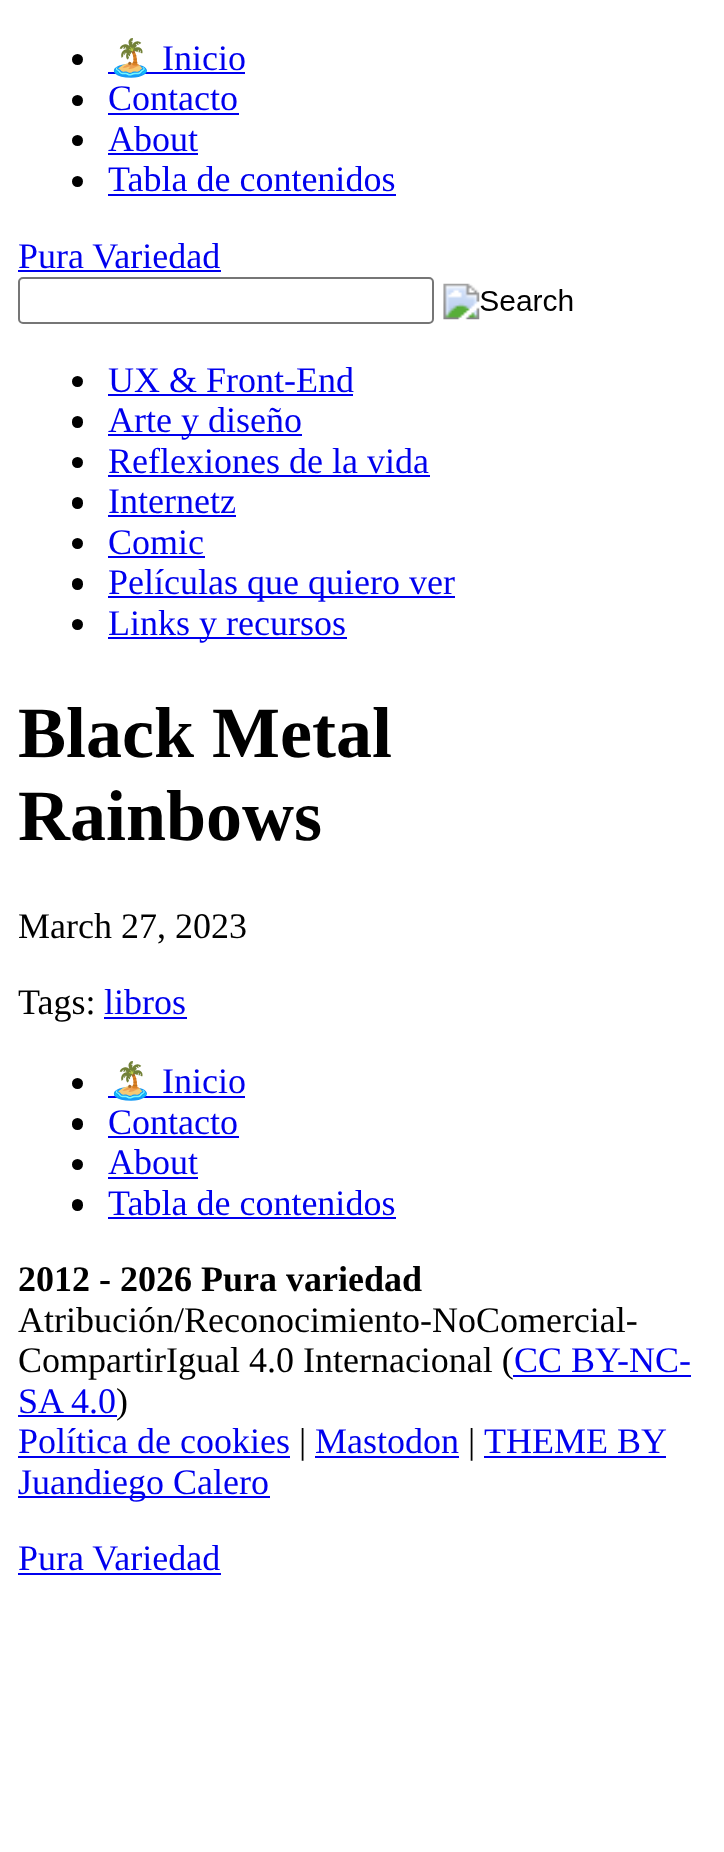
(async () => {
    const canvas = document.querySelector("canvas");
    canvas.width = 724;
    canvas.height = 1852;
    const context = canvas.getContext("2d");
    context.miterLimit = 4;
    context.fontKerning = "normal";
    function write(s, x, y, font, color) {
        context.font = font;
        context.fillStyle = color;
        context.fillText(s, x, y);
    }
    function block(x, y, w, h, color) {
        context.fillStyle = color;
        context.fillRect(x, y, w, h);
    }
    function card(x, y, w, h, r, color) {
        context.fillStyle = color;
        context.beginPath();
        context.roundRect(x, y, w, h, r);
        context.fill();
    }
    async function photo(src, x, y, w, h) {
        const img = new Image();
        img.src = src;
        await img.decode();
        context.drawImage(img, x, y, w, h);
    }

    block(0, 0, 724, 1852, "rgb(255, 255, 255)");
    context.fillStyle = "rgb(0, 0, 0)";
    context.beginPath();
    context.arc(77.5, 59.5, 5.5, 0, Math.PI * 2);
    context.fill();
    block(108, 72, 137, 2, "rgb(0, 0, 238)");
    write("🏝️", 108, 70, "36px Noto Color Emoji", "rgb(0, 0, 238)");
    write("Inicio", 162, 70, "36px Liberation Serif", "rgb(0, 0, 238)");
    context.fillStyle = "rgb(0, 0, 0)";
    context.beginPath();
    context.arc(77.5, 100.5, 5.5, 0, Math.PI * 2);
    context.fill();
    write("Contacto", 108, 110, "36px Liberation Serif", "rgb(0, 0, 238)");
    block(108, 113, 131, 2, "rgb(0, 0, 238)");
    context.fillStyle = "rgb(0, 0, 0)";
    context.beginPath();
    context.arc(77.5, 140.5, 5.5, 0, Math.PI * 2);
    context.fill();
    write("About", 108, 151, "36px Liberation Serif", "rgb(0, 0, 238)");
    block(108, 153, 90, 2, "rgb(0, 0, 238)");
    context.fillStyle = "rgb(0, 0, 0)";
    context.beginPath();
    context.arc(77.5, 181.5, 5.5, 0, Math.PI * 2);
    context.fill();
    write("Tabla de contenidos", 108, 191, "36px Liberation Serif", "rgb(0, 0, 238)");
    block(108, 194, 288, 2, "rgb(0, 0, 238)");
    write("Pura Variedad", 18, 268, "36px Liberation Serif", "rgb(0, 0, 238)");
    block(18, 270, 203, 2, "rgb(0, 0, 238)");
    context.beginPath();
    context.roundRect(19, 278, 414, 45, 4);
    context.strokeStyle = "rgb(118, 118, 118)";
    context.lineWidth = 2;
    context.stroke();
    await photo("media/1.png", 443, 283, 130, 37);
    context.fillStyle = "rgb(0, 0, 0)";
    context.beginPath();
    context.arc(77.5, 381.5, 5.5, 0, Math.PI * 2);
    context.fill();
    write("UX & Front-End", 108, 392, "36px Liberation Serif", "rgb(0, 0, 238)");
    block(108, 394, 245, 2, "rgb(0, 0, 238)");
    card(72, 416, 11, 12, 5.5, "rgb(0, 0, 0)");
    block(108, 434, 194, 2, "rgb(0, 0, 238)");
    write("Arte y diseño", 108, 432, "36px Liberation Serif", "rgb(0, 0, 238)");
    context.fillStyle = "rgb(0, 0, 0)";
    context.beginPath();
    context.arc(77.5, 462.5, 5.5, 0, Math.PI * 2);
    context.fill();
    write("Reflexiones de la vida", 108, 473, "36px Liberation Serif", "rgb(0, 0, 238)");
    block(108, 475, 322, 2, "rgb(0, 0, 238)");
    card(72, 497, 11, 12, 5.5, "rgb(0, 0, 0)");
    write("Internetz", 108, 513, "36px Liberation Serif", "rgb(0, 0, 238)");
    block(108, 515, 128, 2, "rgb(0, 0, 238)");
    context.fillStyle = "rgb(0, 0, 0)";
    context.beginPath();
    context.arc(77.5, 543.5, 5.5, 0, Math.PI * 2);
    context.fill();
    write("Comic", 108, 554, "36px Liberation Serif", "rgb(0, 0, 238)");
    block(108, 556, 97, 2, "rgb(0, 0, 238)");
    card(72, 578, 11, 12, 5.5, "rgb(0, 0, 0)");
    block(108, 596, 347, 2, "rgb(0, 0, 238)");
    write("Películas que quiero ver", 108, 594, "36px Liberation Serif", "rgb(0, 0, 238)");
    context.fillStyle = "rgb(0, 0, 0)";
    context.beginPath();
    context.arc(77.5, 624.5, 5.5, 0, Math.PI * 2);
    context.fill();
    block(108, 637, 239, 2, "rgb(0, 0, 238)");
    write("Links y recursos", 108, 635, "36px Liberation Serif", "rgb(0, 0, 238)");
    write("Black Metal", 18, 757, "bold 72px Liberation Serif", "rgb(0, 0, 0)");
    write("Rainbows", 18, 840, "bold 72px Liberation Serif", "rgb(0, 0, 0)");
    write("March 27, 2023", 18, 938, "36px Liberation Serif", "rgb(0, 0, 0)");
    write("Tags:", 18, 1014, "36px Liberation Serif", "rgb(0, 0, 0)");
    write("libros", 104, 1014, "36px Liberation Serif", "rgb(0, 0, 238)");
    block(104, 1017, 83, 2, "rgb(0, 0, 238)");
    context.fillStyle = "rgb(0, 0, 0)";
    context.beginPath();
    context.arc(77.5, 1083.5, 5.5, 0, Math.PI * 2);
    context.fill();
    block(108, 1096, 137, 2, "rgb(0, 0, 238)");
    write("🏝️", 108, 1093, "36px Noto Color Emoji", "rgb(0, 0, 238)");
    write("Inicio", 162, 1093, "36px Liberation Serif", "rgb(0, 0, 238)");
    card(72, 1118, 11, 12, 5.5, "rgb(0, 0, 0)");
    write("Contacto", 108, 1134, "36px Liberation Serif", "rgb(0, 0, 238)");
    block(108, 1136, 131, 2, "rgb(0, 0, 238)");
    context.fillStyle = "rgb(0, 0, 0)";
    context.beginPath();
    context.arc(77.5, 1164.5, 5.5, 0, Math.PI * 2);
    context.fill();
    write("About", 108, 1174, "36px Liberation Serif", "rgb(0, 0, 238)");
    block(108, 1177, 90, 2, "rgb(0, 0, 238)");
    card(72, 1199, 11, 12, 5.5, "rgb(0, 0, 0)");
    write("Tabla de contenidos", 108, 1215, "36px Liberation Serif", "rgb(0, 0, 238)");
    block(108, 1217, 288, 2, "rgb(0, 0, 238)");
    write("2012 - 2026 Pura variedad", 18, 1291, "bold 36px Liberation Serif", "rgb(0, 0, 0)");
    write("Atribución/Reconocimiento-NoComercial-", 18, 1332, "36px Liberation Serif", "rgb(0, 0, 0)");
    write("CompartirIgual 4.0 Internacional (", 18, 1372, "36px Liberation Serif", "rgb(0, 0, 0)");
    write("CC BY-NC-", 514, 1372, "36px Liberation Serif", "rgb(0, 0, 238)");
    block(513, 1375, 178, 2, "rgb(0, 0, 238)");
    write("SA 4.0", 18, 1413, "36px Liberation Serif", "rgb(0, 0, 238)");
    block(18, 1415, 99, 2, "rgb(0, 0, 238)");
    write(")", 116, 1413, "36px Liberation Serif", "rgb(0, 0, 0)");
    write("Política de cookies", 18, 1453, "36px Liberation Serif", "rgb(0, 0, 238)");
    block(18, 1456, 272, 2, "rgb(0, 0, 238)");
    write("|", 299, 1453, "36px Liberation Serif", "rgb(0, 0, 0)");
    write("Mastodon", 315, 1453, "36px Liberation Serif", "rgb(0, 0, 238)");
    block(315, 1456, 144, 2, "rgb(0, 0, 238)");
    write("|", 468, 1453, "36px Liberation Serif", "rgb(0, 0, 0)");
    write("THEME BY", 484, 1453, "36px Liberation Serif", "rgb(0, 0, 238)");
    block(484, 1456, 182, 2, "rgb(0, 0, 238)");
    block(18, 1496, 252, 2, "rgb(0, 0, 238)");
    write("Juandiego Calero", 18, 1494, "36px Liberation Serif", "rgb(0, 0, 238)");
    write("Pura Variedad", 18, 1570, "36px Liberation Serif", "rgb(0, 0, 238)");
    block(18, 1573, 203, 2, "rgb(0, 0, 238)");
})();
